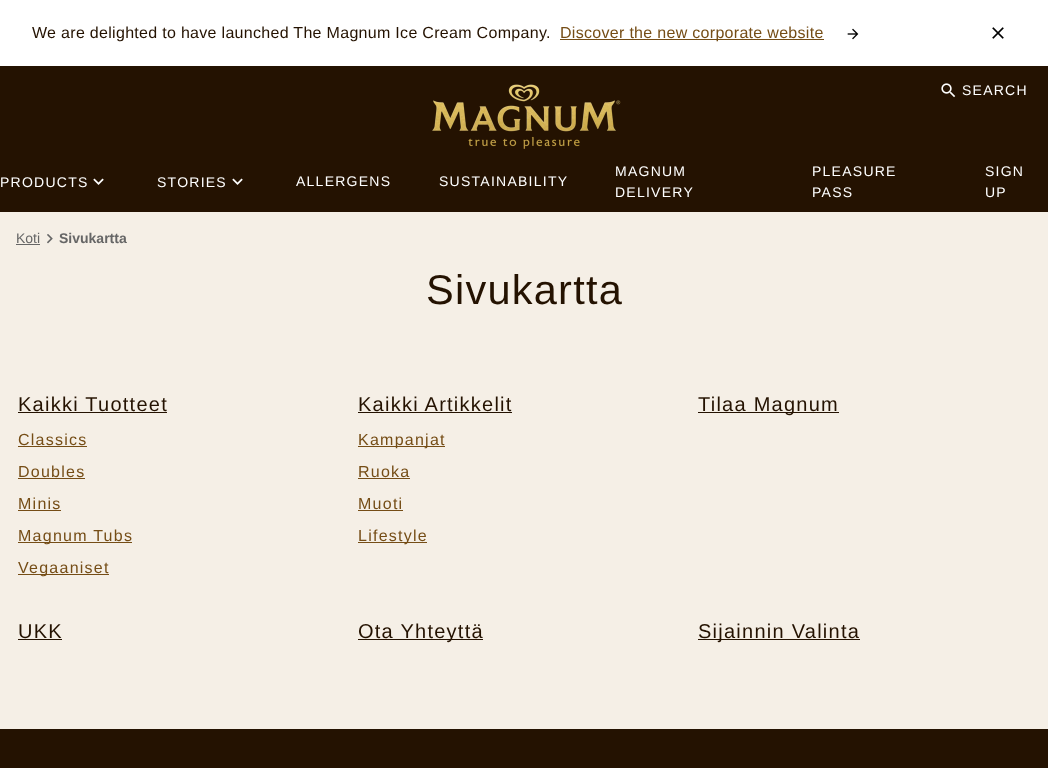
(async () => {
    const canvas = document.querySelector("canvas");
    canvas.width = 1048;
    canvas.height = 768;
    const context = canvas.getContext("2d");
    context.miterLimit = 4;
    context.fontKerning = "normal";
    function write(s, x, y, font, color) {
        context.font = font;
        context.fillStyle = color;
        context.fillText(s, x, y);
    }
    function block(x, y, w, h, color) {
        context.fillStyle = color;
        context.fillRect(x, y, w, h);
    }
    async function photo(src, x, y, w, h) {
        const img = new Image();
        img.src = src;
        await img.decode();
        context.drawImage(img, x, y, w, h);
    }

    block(0, 0, 1048, 768, "rgb(245, 239, 230)");
    block(0, 66, 1048, 146, "rgb(36, 18, 1)");
    block(0, 0, 1048, 66, "rgb(255, 255, 255)");
    context.letterSpacing = "0.3px";
    write("We are delighted to have launched The Magnum Ice Cream Company.", 32, 38, "16px Liberation Sans", "rgb(36, 18, 1)");
    block(560, 39, 264, 1, "rgb(117, 77, 22)");
    write("Discover the new corporate website", 560, 38, "16px Liberation Sans", "rgb(117, 77, 22)");
    await photo("media/1.png", 847, 28, 12, 12);
    await photo("media/2.png", 992, 27, 12, 12);
    await photo("media/3.png", 432, 84, 189, 65);
    await photo("media/4.png", 941, 83, 15, 15);
    context.letterSpacing = "1.25px";
    write("SEARCH", 962, 95, "14px Liberation Sans", "rgb(255, 255, 255)");
    write("PRODUCTS", 0, 187, "14px Liberation Sans", "rgb(255, 255, 255)");
    await photo("media/5.png", 93, 178, 11, 7);
    write("STORIES", 157, 187, "14px Liberation Sans", "rgb(255, 255, 255)");
    await photo("media/5.png", 232, 178, 11, 7);
    write("ALLERGENS", 296, 186, "14px Liberation Sans", "rgb(255, 255, 255)");
    write("SUSTAINABILITY", 439, 186, "14px Liberation Sans", "rgb(255, 255, 255)");
    write("MAGNUM", 615, 176, "14px Liberation Sans", "rgb(255, 255, 255)");
    write("DELIVERY", 615, 197, "14px Liberation Sans", "rgb(255, 255, 255)");
    write("PLEASURE", 812, 176, "14px Liberation Sans", "rgb(255, 255, 255)");
    write("PASS", 812, 197, "14px Liberation Sans", "rgb(255, 255, 255)");
    write("SIGN", 985, 176, "14px Liberation Sans", "rgb(255, 255, 255)");
    write("UP", 985, 197, "14px Liberation Sans", "rgb(255, 255, 255)");
    context.letterSpacing = "0px";
    write("Koti", 16, 243, "14px Liberation Sans", "rgb(102, 102, 102)");
    block(16, 244, 24, 1, "rgb(102, 102, 102)");
    await photo("media/6.png", 47, 234, 6, 10);
    write("Sivukartta", 59, 243, "bold 14px Liberation Sans", "rgb(102, 102, 102)");
    context.letterSpacing = "1.25px";
    write("Sivukartta", 426, 304, "41.5px Liberation Sans", "rgb(36, 18, 1)");
    write("Kaikki Tuotteet", 18, 411, "20px Liberation Sans", "rgb(36, 18, 1)");
    block(18, 412, 149, 1, "rgb(36, 18, 1)");
    write("Classics", 18, 445, "16px Liberation Sans", "rgb(117, 77, 22)");
    block(18, 446, 69, 1, "rgb(117, 77, 22)");
    write("Doubles", 18, 477, "16px Liberation Sans", "rgb(117, 77, 22)");
    block(18, 478, 67, 1, "rgb(117, 77, 22)");
    write("Minis", 18, 509, "16px Liberation Sans", "rgb(117, 77, 22)");
    block(18, 510, 43, 1, "rgb(117, 77, 22)");
    block(18, 542, 114, 1, "rgb(117, 77, 22)");
    write("Magnum Tubs", 18, 541, "16px Liberation Sans", "rgb(117, 77, 22)");
    block(18, 574, 91, 1, "rgb(117, 77, 22)");
    write("Vegaaniset", 18, 573, "16px Liberation Sans", "rgb(117, 77, 22)");
    write("Kaikki Artikkelit", 358, 411, "20px Liberation Sans", "rgb(36, 18, 1)");
    block(358, 412, 154, 1, "rgb(36, 18, 1)");
    block(358, 446, 87, 1, "rgb(117, 77, 22)");
    write("Kampanjat", 358, 445, "16px Liberation Sans", "rgb(117, 77, 22)");
    write("Ruoka", 358, 477, "16px Liberation Sans", "rgb(117, 77, 22)");
    block(358, 478, 52, 1, "rgb(117, 77, 22)");
    write("Muoti", 358, 509, "16px Liberation Sans", "rgb(117, 77, 22)");
    block(358, 510, 45, 1, "rgb(117, 77, 22)");
    block(358, 542, 69, 1, "rgb(117, 77, 22)");
    write("Lifestyle", 358, 541, "16px Liberation Sans", "rgb(117, 77, 22)");
    block(698, 412, 141, 1, "rgb(36, 18, 1)");
    write("Tilaa Magnum", 698, 411, "20px Liberation Sans", "rgb(36, 18, 1)");
    write("UKK", 18, 638, "20px Liberation Sans", "rgb(36, 18, 1)");
    block(18, 639, 44, 1, "rgb(36, 18, 1)");
    block(358, 639, 125, 1, "rgb(36, 18, 1)");
    write("Ota Yhteyttä", 358, 638, "20px Liberation Sans", "rgb(36, 18, 1)");
    block(698, 639, 162, 1, "rgb(36, 18, 1)");
    write("Sijainnin Valinta", 698, 638, "20px Liberation Sans", "rgb(36, 18, 1)");
    block(0, 729, 1048, 39, "rgb(36, 18, 1)");
})();
